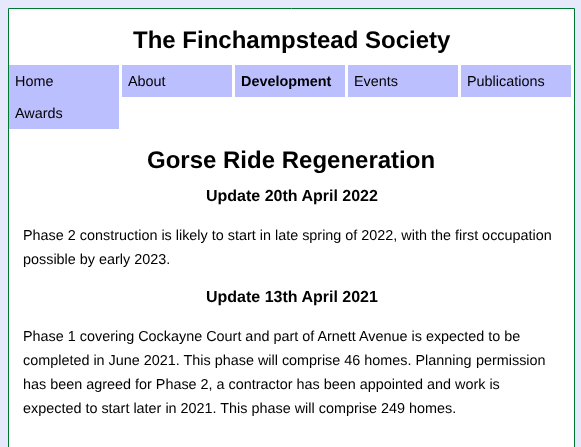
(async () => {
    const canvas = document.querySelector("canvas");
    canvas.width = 581;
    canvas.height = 447;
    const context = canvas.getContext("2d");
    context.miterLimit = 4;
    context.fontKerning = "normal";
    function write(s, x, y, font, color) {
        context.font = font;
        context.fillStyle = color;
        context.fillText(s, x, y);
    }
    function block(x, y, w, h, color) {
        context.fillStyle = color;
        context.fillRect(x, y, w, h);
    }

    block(0, 0, 581, 447, "rgb(230, 232, 252)");
    context.fillStyle = "rgb(255, 255, 255)";
    context.beginPath();
    context.rect(8.5, 8.5, 566, 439);
    context.fill();
    context.strokeStyle = "rgb(0, 119, 48)";
    context.stroke();
    write("The Finchampstead Society", 133, 48, "bold 24px Liberation Sans", "rgb(0, 0, 0)");
    block(9, 65, 110, 64, "rgb(188, 191, 254)");
    write("Home", 15, 86, "14.4px Liberation Sans", "rgb(0, 0, 0)");
    block(122, 65, 110, 32, "rgb(188, 191, 254)");
    write("About", 128, 86, "14.4px Liberation Sans", "rgb(0, 0, 0)");
    block(235, 65, 110, 32, "rgb(188, 191, 254)");
    write("Development", 241, 86, "bold 14.4px Liberation Sans", "rgb(0, 0, 0)");
    block(348, 65, 110, 32, "rgb(188, 191, 254)");
    write("Events", 354, 86, "14.4px Liberation Sans", "rgb(0, 0, 0)");
    block(461, 65, 110, 32, "rgb(188, 191, 254)");
    write("Publications", 467, 86, "14.4px Liberation Sans", "rgb(0, 0, 0)");
    write("Awards", 15, 118, "14.4px Liberation Sans", "rgb(0, 0, 0)");
    write("Gorse Ride Regeneration", 147, 168, "bold 24px Liberation Sans", "rgb(0, 0, 0)");
    write("Update 20th April 2022", 206, 201, "bold 16px Liberation Sans", "rgb(0, 0, 0)");
    write("Phase 2 construction is likely to start in late spring of 2022, with the first occupation", 23, 240, "14.4px Liberation Sans", "rgb(0, 0, 0)");
    write("possible by early 2023.", 23, 264, "14.4px Liberation Sans", "rgb(0, 0, 0)");
    write("Update 13th April 2021", 206, 302, "bold 16px Liberation Sans", "rgb(0, 0, 0)");
    write("Phase 1 covering Cockayne Court and part of Arnett Avenue is expected to be", 23, 341, "14.4px Liberation Sans", "rgb(0, 0, 0)");
    write("completed in June 2021. This phase will comprise 46 homes. Planning", 23, 365, "14.4px Liberation Sans", "rgb(0, 0, 0)");
    write("permission", 476, 365, "14.4px Liberation Sans", "rgb(0, 0, 0)");
    write("has been agreed for Phase 2, a contractor has been appointed and work is", 23, 389, "14.4px Liberation Sans", "rgb(0, 0, 0)");
    write("expected to start later in 2021. This phase will comprise 249 homes.", 23, 413, "14.4px Liberation Sans", "rgb(0, 0, 0)");
})();
